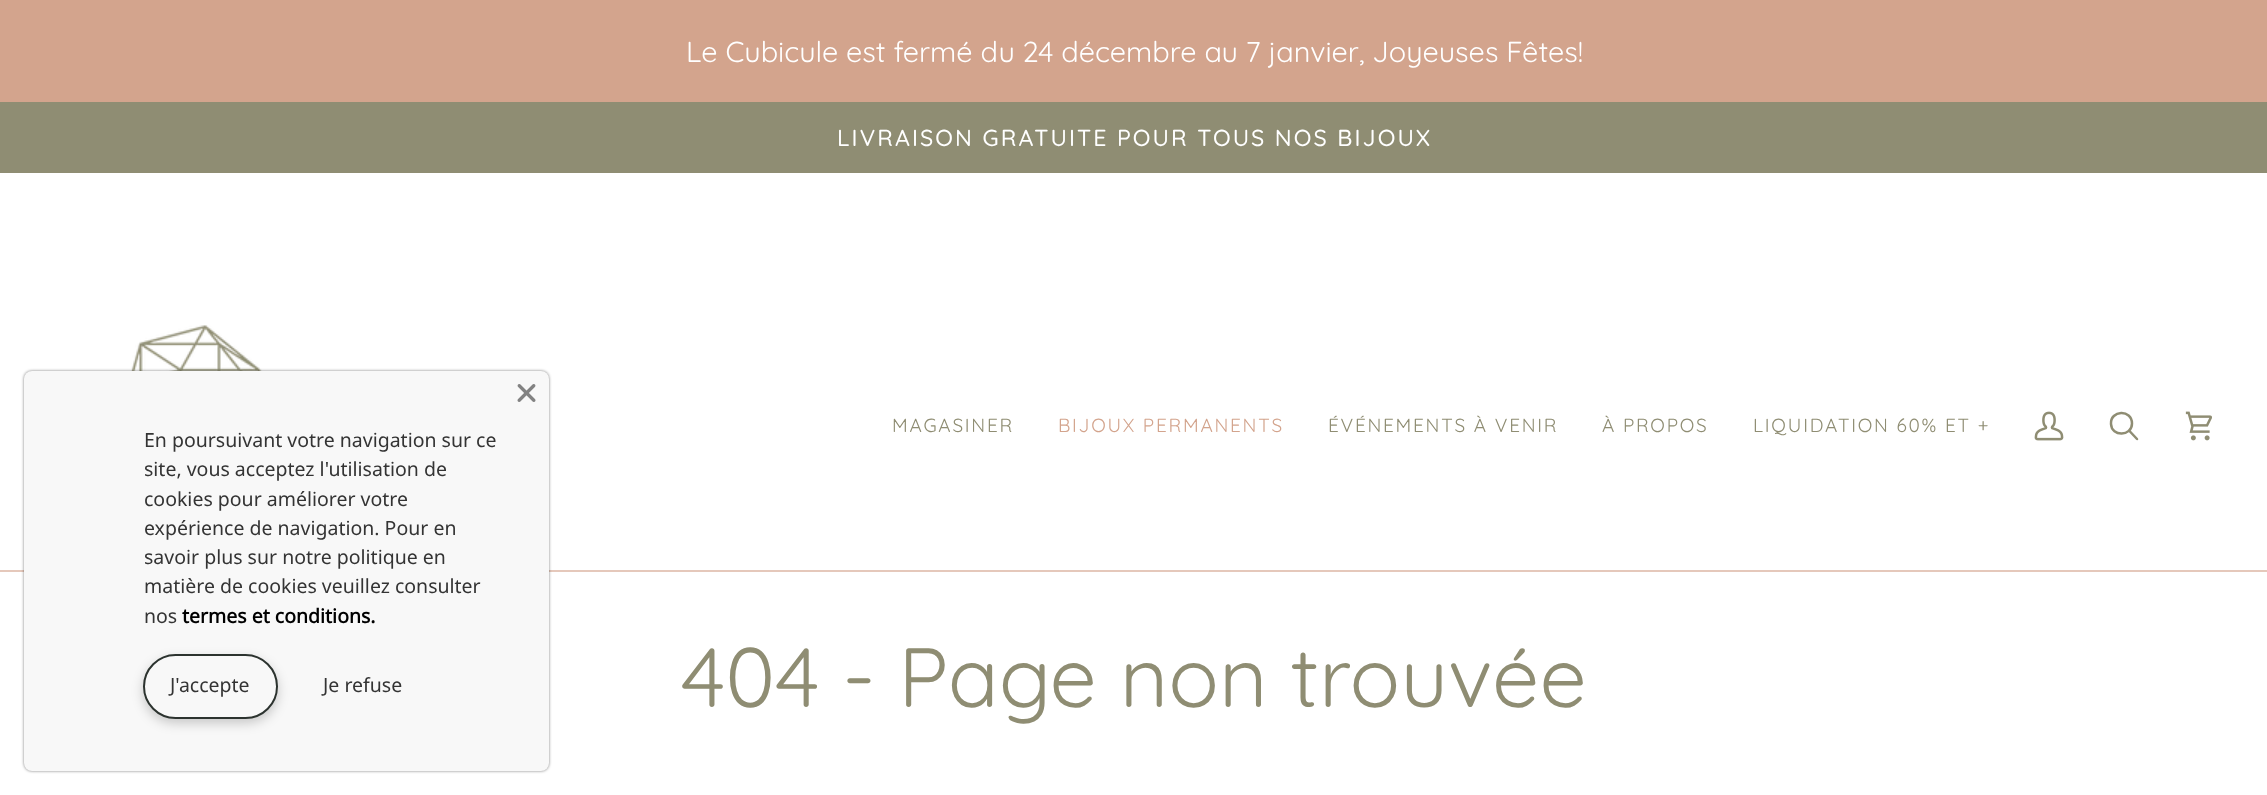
(async () => {
    const canvas = document.querySelector("canvas");
    canvas.width = 2267;
    canvas.height = 795;
    const context = canvas.getContext("2d");
    context.miterLimit = 4;
    context.fontKerning = "normal";
    function write(s, x, y, font, color) {
        context.font = font;
        context.fillStyle = color;
        context.fillText(s, x, y);
    }
    function block(x, y, w, h, color) {
        context.fillStyle = color;
        context.fillRect(x, y, w, h);
    }
    function card(x, y, w, h, r, color) {
        context.fillStyle = color;
        context.beginPath();
        context.roundRect(x, y, w, h, r);
        context.fill();
    }
    async function photo(src, x, y, w, h) {
        const img = new Image();
        img.src = src;
        await img.decode();
        context.drawImage(img, x, y, w, h);
    }

    block(0, 0, 2267, 795, "rgb(255, 255, 255)");
    block(0, 0, 2267, 102, "rgb(211, 164, 141)");
    write("Le Cubicule est fermé du 24 décembre au 7 janvier, Joyeuses Fêtes!", 686, 62, "28.8px Quicksand", "rgb(255, 255, 255)");
    block(0, 102, 2267, 71, "rgb(143, 141, 115)");
    context.letterSpacing = "2.1px";
    write("LIVRAISON GRATUITE POUR TOUS NOS BIJOUX", 837, 146, "500 23.1px Quicksand", "rgb(255, 255, 255)");
    block(0, 570, 2267, 2, "rgb(229, 200, 187)");
    await photo("media/1.png", 130, 325, 132, 46);
    context.letterSpacing = "1.75px";
    write("MAGASINER", 892, 432, "19px Quicksand", "rgb(143, 141, 115)");
    write("BIJOUX PERMANENTS", 1058, 432, "19px Quicksand", "rgb(211, 164, 141)");
    write("ÉVÉNEMENTS À VENIR", 1328, 432, "19px Quicksand", "rgb(143, 141, 115)");
    write("À PROPOS", 1602, 432, "19px Quicksand", "rgb(143, 141, 115)");
    write("LIQUIDATION 60% ET +", 1753, 432, "19px Quicksand", "rgb(143, 141, 115)");
    await photo("media/2.png", 2034, 411, 30, 30);
    context.beginPath();
    context.moveTo(2132, 423.5);
    context.bezierCurveTo(2132, 436.5, 2111.5, 437, 2111, 424);
    context.bezierCurveTo(2110, 410, 2132, 409, 2132, 423.5);
    context.closePath();
    context.moveTo(2137, 439);
    context.lineTo(2129, 430.5);
    context.closePath();
    context.strokeStyle = "rgb(143, 141, 115)";
    context.lineWidth = 2.5;
    context.lineCap = "round";
    context.lineJoin = "round";
    context.stroke();
    await photo("media/3.png", 2185, 411, 27, 30);
    context.fillStyle = "rgba(0, 0, 0, 0.5)";
    context.filter = "blur(1.5px)";
    context.beginPath();
    context.roundRect(24, 371, 525, 400, 8);
    context.fill();
    context.filter = "none";
    card(24, 371, 525, 400, 8, "rgb(248, 248, 248)");
    await photo("media/4.png", 517, 384, 19, 18);
    context.letterSpacing = "0px";
    write("En poursuivant votre navigation sur ce", 144, 447, "19.5px Noto Sans", "rgb(52, 52, 52)");
    write("site, vous acceptez l'utilisation de", 144, 476, "19.5px Noto Sans", "rgb(52, 52, 52)");
    write("cookies pour améliorer votre", 144, 506, "19.5px Noto Sans", "rgb(52, 52, 52)");
    write("expérience de navigation. Pour en", 144, 535, "19.5px Noto Sans", "rgb(52, 52, 52)");
    write("savoir plus sur notre politique en", 144, 564, "19.5px Noto Sans", "rgb(52, 52, 52)");
    write("matière de cookies veuillez consulter", 144, 593, "19.5px Noto Sans", "rgb(52, 52, 52)");
    write("nos", 144, 623, "19.5px Noto Sans", "rgb(52, 52, 52)");
    write("termes et conditions.", 182, 623, "bold 19.5px Noto Sans", "rgb(0, 0, 0)");
    context.fillStyle = "rgba(0, 0, 0, 0.2)";
    context.filter = "blur(6px)";
    context.beginPath();
    context.roundRect(143, 659, 135, 64, 32);
    context.fill();
    context.filter = "none";
    context.fillStyle = "rgb(248, 248, 248)";
    context.beginPath();
    context.roundRect(144, 655, 133, 63, 31.5);
    context.fill();
    context.strokeStyle = "rgb(44, 51, 47)";
    context.lineWidth = 2;
    context.lineJoin = "miter";
    context.stroke();
    write("J'accepte", 170, 692, "19.5px Noto Sans", "rgb(52, 52, 52)");
    write("Je refuse", 323, 692, "19.5px Noto Sans", "rgb(52, 52, 52)");
    write("404 - Page non trouvée", 681, 707, "84px Quicksand", "rgb(143, 141, 115)");
})();
